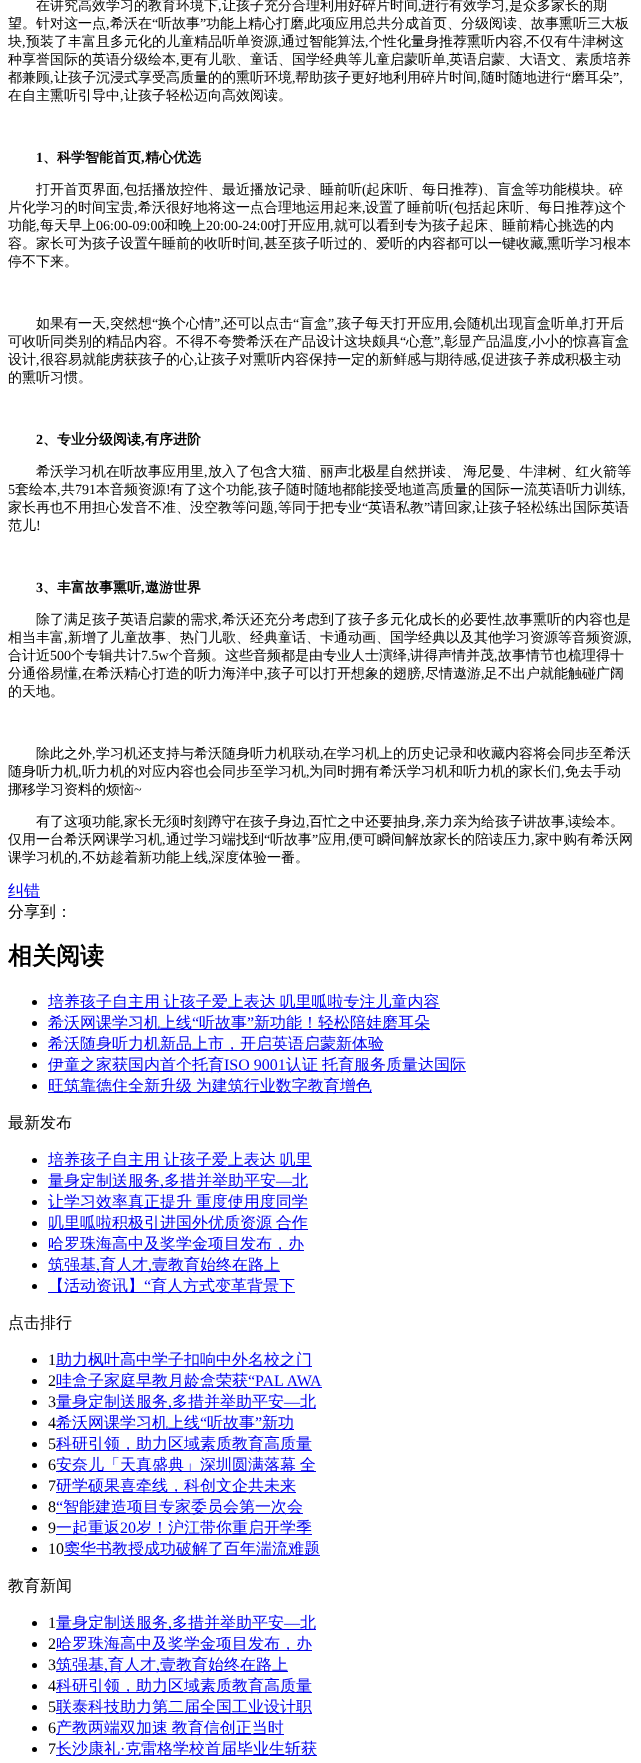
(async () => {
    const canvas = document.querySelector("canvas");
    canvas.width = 641;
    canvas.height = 1763;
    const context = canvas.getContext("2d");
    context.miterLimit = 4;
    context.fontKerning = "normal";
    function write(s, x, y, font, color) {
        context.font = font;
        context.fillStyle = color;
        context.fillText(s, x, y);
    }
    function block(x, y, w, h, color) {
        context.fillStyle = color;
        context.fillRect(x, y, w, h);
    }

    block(0, 0, 641, 1763, "rgb(255, 255, 255)");
    write("在讲究高效学习的教育环境下", 36, 10, "500 14px WenQuanYi Zen Hei", "rgb(0, 0, 0)");
    write(",", 218, 10, "14px Liberation Serif", "rgb(0, 0, 0)");
    write("让孩子充分合理利用好碎片时间", 222, 10, "500 14px WenQuanYi Zen Hei", "rgb(0, 0, 0)");
    write(",", 418, 10, "14px Liberation Serif", "rgb(0, 0, 0)");
    write("进行有效学习", 421, 10, "500 14px WenQuanYi Zen Hei", "rgb(0, 0, 0)");
    write(",", 505, 10, "14px Liberation Serif", "rgb(0, 0, 0)");
    write("是众多家长的期", 509, 10, "500 14px WenQuanYi Zen Hei", "rgb(0, 0, 0)");
    write("望。针对这一点", 8, 28, "500 14px WenQuanYi Zen Hei", "rgb(0, 0, 0)");
    write("希沃在", 110, 28, "500 14px WenQuanYi Zen Hei", "rgb(0, 0, 0)");
    write("“", 152, 28, "14px Liberation Serif", "rgb(0, 0, 0)");
    write("听故事", 158, 28, "500 14px WenQuanYi Zen Hei", "rgb(0, 0, 0)");
    write("”", 200, 28, "14px Liberation Serif", "rgb(0, 0, 0)");
    write("功能上精心打磨", 206, 28, "500 14px WenQuanYi Zen Hei", "rgb(0, 0, 0)");
    write("此项应用总共分成首页、分级阅读、故事熏听三大板", 307, 28, "500 14px WenQuanYi Zen Hei", "rgb(0, 0, 0)");
    write(",", 106, 28, "14px Liberation Serif", "rgb(0, 0, 0)");
    write(",", 304, 28, "14px Liberation Serif", "rgb(0, 0, 0)");
    write("块", 8, 46, "500 14px WenQuanYi Zen Hei", "rgb(0, 0, 0)");
    write(",", 22, 46, "14px Liberation Serif", "rgb(0, 0, 0)");
    write("预装了丰富且多元化的儿童精品听单资源", 26, 46, "500 14px WenQuanYi Zen Hei", "rgb(0, 0, 0)");
    write(",", 278, 46, "14px Liberation Serif", "rgb(0, 0, 0)");
    write("通过智能算法", 281, 46, "500 14px WenQuanYi Zen Hei", "rgb(0, 0, 0)");
    write(",", 365, 46, "14px Liberation Serif", "rgb(0, 0, 0)");
    write("个性化量身推荐熏听内容", 369, 46, "500 14px WenQuanYi Zen Hei", "rgb(0, 0, 0)");
    write(",", 523, 46, "14px Liberation Serif", "rgb(0, 0, 0)");
    write("不仅有牛津树这", 526, 46, "500 14px WenQuanYi Zen Hei", "rgb(0, 0, 0)");
    write("种享誉国际的英语分级绘本", 8, 64, "500 14px WenQuanYi Zen Hei", "rgb(0, 0, 0)");
    write(",", 176, 64, "14px Liberation Serif", "rgb(0, 0, 0)");
    write("更有儿歌、童话、国学经典等儿童启蒙听单", 180, 64, "500 14px WenQuanYi Zen Hei", "rgb(0, 0, 0)");
    write(",", 446, 64, "14px Liberation Serif", "rgb(0, 0, 0)");
    write("英语启蒙、大语文、素质培养", 449, 64, "500 14px WenQuanYi Zen Hei", "rgb(0, 0, 0)");
    write("都兼顾", 8, 82, "500 14px WenQuanYi Zen Hei", "rgb(0, 0, 0)");
    write(",", 50, 82, "14px Liberation Serif", "rgb(0, 0, 0)");
    write("让孩子沉浸式享受高质量的的熏听环境", 54, 82, "500 14px WenQuanYi Zen Hei", "rgb(0, 0, 0)");
    write(",", 292, 82, "14px Liberation Serif", "rgb(0, 0, 0)");
    write("帮助孩子更好地利用碎片时间", 295, 82, "500 14px WenQuanYi Zen Hei", "rgb(0, 0, 0)");
    write(",", 477, 82, "14px Liberation Serif", "rgb(0, 0, 0)");
    write("随时随地进行", 481, 82, "500 14px WenQuanYi Zen Hei", "rgb(0, 0, 0)");
    write("“", 565, 82, "14px Liberation Serif", "rgb(0, 0, 0)");
    write("磨耳朵", 571, 82, "500 14px WenQuanYi Zen Hei", "rgb(0, 0, 0)");
    write("”,", 613, 82, "14px Liberation Serif", "rgb(0, 0, 0)");
    write("在自主熏听引导中", 8, 100, "500 14px WenQuanYi Zen Hei", "rgb(0, 0, 0)");
    write(",", 120, 100, "14px Liberation Serif", "rgb(0, 0, 0)");
    write("让孩子轻松迈向高效阅读。", 124, 100, "500 14px WenQuanYi Zen Hei", "rgb(0, 0, 0)");
    write("1", 36, 162, "bold 14px Liberation Serif", "rgb(0, 0, 0)");
    write("、科学智能首页", 43, 162, "bold 14px WenQuanYi Zen Hei", "rgb(0, 0, 0)");
    write(",", 141, 162, "bold 14px Liberation Serif", "rgb(0, 0, 0)");
    write("精心优选", 145, 162, "bold 14px WenQuanYi Zen Hei", "rgb(0, 0, 0)");
    write("打开首页界面", 36, 194, "500 14px WenQuanYi Zen Hei", "rgb(0, 0, 0)");
    write(",", 120, 194, "14px Liberation Serif", "rgb(0, 0, 0)");
    write("包括播放控件、最近播放记录、睡前听", 124, 194, "500 14px WenQuanYi Zen Hei", "rgb(0, 0, 0)");
    write("(", 362, 194, "14px Liberation Serif", "rgb(0, 0, 0)");
    write("起床听、每日推荐", 366, 194, "500 14px WenQuanYi Zen Hei", "rgb(0, 0, 0)");
    write(")", 478, 194, "14px Liberation Serif", "rgb(0, 0, 0)");
    write("、盲盒等功能模块。碎", 483, 194, "500 14px WenQuanYi Zen Hei", "rgb(0, 0, 0)");
    write("片化学习的时间宝贵", 8, 212, "500 14px WenQuanYi Zen Hei", "rgb(0, 0, 0)");
    write(",", 134, 212, "14px Liberation Serif", "rgb(0, 0, 0)");
    write("希沃很好地将这一点合理地运用起来", 138, 212, "500 14px WenQuanYi Zen Hei", "rgb(0, 0, 0)");
    write(",", 362, 212, "14px Liberation Serif", "rgb(0, 0, 0)");
    write("设置了睡前听", 365, 212, "500 14px WenQuanYi Zen Hei", "rgb(0, 0, 0)");
    write("(", 449, 212, "14px Liberation Serif", "rgb(0, 0, 0)");
    write("包括起床听、每日推荐", 454, 212, "500 14px WenQuanYi Zen Hei", "rgb(0, 0, 0)");
    write(")", 594, 212, "14px Liberation Serif", "rgb(0, 0, 0)");
    write("这个", 598, 212, "500 14px WenQuanYi Zen Hei", "rgb(0, 0, 0)");
    write("功能", 8, 230, "500 14px WenQuanYi Zen Hei", "rgb(0, 0, 0)");
    write(",", 36, 230, "14px Liberation Serif", "rgb(0, 0, 0)");
    write("每天早上", 40, 230, "500 14px WenQuanYi Zen Hei", "rgb(0, 0, 0)");
    write("06:00-09:00", 96, 230, "14px Liberation Serif", "rgb(0, 0, 0)");
    write("和晚上", 164, 230, "500 14px WenQuanYi Zen Hei", "rgb(0, 0, 0)");
    write("20:00-24:00", 206, 230, "14px Liberation Serif", "rgb(0, 0, 0)");
    write("打开应用", 274, 230, "500 14px WenQuanYi Zen Hei", "rgb(0, 0, 0)");
    write(",", 330, 230, "14px Liberation Serif", "rgb(0, 0, 0)");
    write("就可以看到专为孩子起床、睡前精心挑选的内", 334, 230, "500 14px WenQuanYi Zen Hei", "rgb(0, 0, 0)");
    write("容。家长可为孩子设置午睡前的收听时间", 8, 248, "500 14px WenQuanYi Zen Hei", "rgb(0, 0, 0)");
    write(",", 260, 248, "14px Liberation Serif", "rgb(0, 0, 0)");
    write("甚至孩子听过的、爱听的内容都可以一键收藏", 264, 248, "500 14px WenQuanYi Zen Hei", "rgb(0, 0, 0)");
    write(",", 544, 248, "14px Liberation Serif", "rgb(0, 0, 0)");
    write("熏听学习根本", 547, 248, "500 14px WenQuanYi Zen Hei", "rgb(0, 0, 0)");
    write("停不下来。", 8, 266, "500 14px WenQuanYi Zen Hei", "rgb(0, 0, 0)");
    write("如果有一天", 36, 328, "500 14px WenQuanYi Zen Hei", "rgb(0, 0, 0)");
    write(",", 106, 328, "14px Liberation Serif", "rgb(0, 0, 0)");
    write("突然想", 110, 328, "500 14px WenQuanYi Zen Hei", "rgb(0, 0, 0)");
    write("“", 152, 328, "14px Liberation Serif", "rgb(0, 0, 0)");
    write("换个心情", 158, 328, "500 14px WenQuanYi Zen Hei", "rgb(0, 0, 0)");
    write("”,", 214, 328, "14px Liberation Serif", "rgb(0, 0, 0)");
    write("还可以点击", 223, 328, "500 14px WenQuanYi Zen Hei", "rgb(0, 0, 0)");
    write("“", 293, 328, "14px Liberation Serif", "rgb(0, 0, 0)");
    write("盲盒", 300, 328, "500 14px WenQuanYi Zen Hei", "rgb(0, 0, 0)");
    write("”,", 328, 328, "14px Liberation Serif", "rgb(0, 0, 0)");
    write("孩子每天打开应用", 337, 328, "500 14px WenQuanYi Zen Hei", "rgb(0, 0, 0)");
    write(",", 449, 328, "14px Liberation Serif", "rgb(0, 0, 0)");
    write("会随机出现盲盒听单", 453, 328, "500 14px WenQuanYi Zen Hei", "rgb(0, 0, 0)");
    write(",", 579, 328, "14px Liberation Serif", "rgb(0, 0, 0)");
    write("打开后", 582, 328, "500 14px WenQuanYi Zen Hei", "rgb(0, 0, 0)");
    write("可收听同类别的精品内容。不得不夸赞希沃在产品设计这块颇具", 8, 346, "500 14px WenQuanYi Zen Hei", "rgb(0, 0, 0)");
    write("“", 400, 346, "14px Liberation Serif", "rgb(0, 0, 0)");
    write("心意", 406, 346, "500 14px WenQuanYi Zen Hei", "rgb(0, 0, 0)");
    write("”,", 434, 346, "14px Liberation Serif", "rgb(0, 0, 0)");
    write("彰显产品温度", 444, 346, "500 14px WenQuanYi Zen Hei", "rgb(0, 0, 0)");
    write(",", 528, 346, "14px Liberation Serif", "rgb(0, 0, 0)");
    write("小小的惊喜盲盒", 531, 346, "500 14px WenQuanYi Zen Hei", "rgb(0, 0, 0)");
    write("设计", 8, 364, "500 14px WenQuanYi Zen Hei", "rgb(0, 0, 0)");
    write(",", 36, 364, "14px Liberation Serif", "rgb(0, 0, 0)");
    write("很容易就能虏获孩子的心", 40, 364, "500 14px WenQuanYi Zen Hei", "rgb(0, 0, 0)");
    write(",", 194, 364, "14px Liberation Serif", "rgb(0, 0, 0)");
    write("让孩子对熏听内容保持一定的新鲜感与期待感", 197, 364, "500 14px WenQuanYi Zen Hei", "rgb(0, 0, 0)");
    write(",", 477, 364, "14px Liberation Serif", "rgb(0, 0, 0)");
    write("促进孩子养成积极主动", 481, 364, "500 14px WenQuanYi Zen Hei", "rgb(0, 0, 0)");
    write("的熏听习惯。", 8, 382, "500 14px WenQuanYi Zen Hei", "rgb(0, 0, 0)");
    write("2", 36, 444, "bold 14px Liberation Serif", "rgb(0, 0, 0)");
    write("、专业分级阅读", 43, 444, "bold 14px WenQuanYi Zen Hei", "rgb(0, 0, 0)");
    write(",", 141, 444, "bold 14px Liberation Serif", "rgb(0, 0, 0)");
    write("有序进阶", 145, 444, "bold 14px WenQuanYi Zen Hei", "rgb(0, 0, 0)");
    write("希沃学习机在听故事应用里", 36, 476, "500 14px WenQuanYi Zen Hei", "rgb(0, 0, 0)");
    write(",", 204, 476, "14px Liberation Serif", "rgb(0, 0, 0)");
    context.wordSpacing = "-1px";
    write("放入了包含大猫、丽声北极星自然拼读、 海尼曼、牛津树、红火箭等", 208, 476, "500 14px WenQuanYi Zen Hei", "rgb(0, 0, 0)");
    context.wordSpacing = "0px";
    write("5", 8, 494, "14px Liberation Serif", "rgb(0, 0, 0)");
    write("套绘本", 15, 494, "500 14px WenQuanYi Zen Hei", "rgb(0, 0, 0)");
    write(",", 57, 494, "14px Liberation Serif", "rgb(0, 0, 0)");
    write("共", 61, 494, "500 14px WenQuanYi Zen Hei", "rgb(0, 0, 0)");
    write("791", 75, 494, "14px Liberation Serif", "rgb(0, 0, 0)");
    write("本音频资源", 96, 494, "500 14px WenQuanYi Zen Hei", "rgb(0, 0, 0)");
    write("!", 166, 494, "14px Liberation Serif", "rgb(0, 0, 0)");
    write("有了这个功能", 170, 494, "500 14px WenQuanYi Zen Hei", "rgb(0, 0, 0)");
    write(",", 254, 494, "14px Liberation Serif", "rgb(0, 0, 0)");
    write("孩子随时随地都能接受地道高质量的国际一流英语听力训练", 258, 494, "500 14px WenQuanYi Zen Hei", "rgb(0, 0, 0)");
    write(",", 622, 494, "14px Liberation Serif", "rgb(0, 0, 0)");
    write("家长再也不用担心发音不准、没空教等问题", 8, 512, "500 14px WenQuanYi Zen Hei", "rgb(0, 0, 0)");
    write("等同于把专业", 278, 512, "500 14px WenQuanYi Zen Hei", "rgb(0, 0, 0)");
    write("“", 362, 512, "14px Liberation Serif", "rgb(0, 0, 0)");
    write("英语私教", 368, 512, "500 14px WenQuanYi Zen Hei", "rgb(0, 0, 0)");
    write("”", 424, 512, "14px Liberation Serif", "rgb(0, 0, 0)");
    write("请回家", 430, 512, "500 14px WenQuanYi Zen Hei", "rgb(0, 0, 0)");
    write("让孩子轻松练出国际英语", 475, 512, "500 14px WenQuanYi Zen Hei", "rgb(0, 0, 0)");
    write(",", 274, 512, "14px Liberation Serif", "rgb(0, 0, 0)");
    write(",", 472, 512, "14px Liberation Serif", "rgb(0, 0, 0)");
    write("范儿", 8, 530, "500 14px WenQuanYi Zen Hei", "rgb(0, 0, 0)");
    write("!", 36, 530, "14px Liberation Serif", "rgb(0, 0, 0)");
    write("3", 36, 592, "bold 14px Liberation Serif", "rgb(0, 0, 0)");
    write("、丰富故事熏听", 43, 592, "bold 14px WenQuanYi Zen Hei", "rgb(0, 0, 0)");
    write(",", 141, 592, "bold 14px Liberation Serif", "rgb(0, 0, 0)");
    write("遨游世界", 145, 592, "bold 14px WenQuanYi Zen Hei", "rgb(0, 0, 0)");
    write("除了满足孩子英语启蒙的需求", 36, 624, "500 14px WenQuanYi Zen Hei", "rgb(0, 0, 0)");
    write(",", 218, 624, "14px Liberation Serif", "rgb(0, 0, 0)");
    write("希沃还充分考虑到了孩子多元化成长的必要性", 222, 624, "500 14px WenQuanYi Zen Hei", "rgb(0, 0, 0)");
    write(",", 502, 624, "14px Liberation Serif", "rgb(0, 0, 0)");
    write("故事熏听的内容也是", 505, 624, "500 14px WenQuanYi Zen Hei", "rgb(0, 0, 0)");
    write("相当丰富", 8, 642, "500 14px WenQuanYi Zen Hei", "rgb(0, 0, 0)");
    write(",", 64, 642, "14px Liberation Serif", "rgb(0, 0, 0)");
    write("新增了儿童故事、热门儿歌、经典童话、卡通动画、国学经典以及其他学习资源等音频资源", 68, 642, "500 14px WenQuanYi Zen Hei", "rgb(0, 0, 0)");
    write(",", 628, 642, "14px Liberation Serif", "rgb(0, 0, 0)");
    write("合计近", 8, 660, "500 14px WenQuanYi Zen Hei", "rgb(0, 0, 0)");
    write("500", 50, 660, "14px Liberation Serif", "rgb(0, 0, 0)");
    write("个专辑共计", 71, 660, "500 14px WenQuanYi Zen Hei", "rgb(0, 0, 0)");
    write("7.5w", 141, 660, "14px Liberation Serif", "rgb(0, 0, 0)");
    write("个音频。这些音频都是由专业人士演绎", 169, 660, "500 14px WenQuanYi Zen Hei", "rgb(0, 0, 0)");
    write(",", 407, 660, "14px Liberation Serif", "rgb(0, 0, 0)");
    write("讲得声情并茂", 410, 660, "500 14px WenQuanYi Zen Hei", "rgb(0, 0, 0)");
    write(",", 494, 660, "14px Liberation Serif", "rgb(0, 0, 0)");
    write("故事情节也梳理得十", 498, 660, "500 14px WenQuanYi Zen Hei", "rgb(0, 0, 0)");
    write("分通俗易懂", 8, 678, "500 14px WenQuanYi Zen Hei", "rgb(0, 0, 0)");
    write(",", 78, 678, "14px Liberation Serif", "rgb(0, 0, 0)");
    write("在希沃精心打造的听力海洋中", 82, 678, "500 14px WenQuanYi Zen Hei", "rgb(0, 0, 0)");
    write(",", 264, 678, "14px Liberation Serif", "rgb(0, 0, 0)");
    write("孩子可以打开想象的翅膀", 267, 678, "500 14px WenQuanYi Zen Hei", "rgb(0, 0, 0)");
    write(",", 421, 678, "14px Liberation Serif", "rgb(0, 0, 0)");
    write("尽情遨游", 425, 678, "500 14px WenQuanYi Zen Hei", "rgb(0, 0, 0)");
    write(",", 481, 678, "14px Liberation Serif", "rgb(0, 0, 0)");
    write("足不出户就能触碰广阔", 484, 678, "500 14px WenQuanYi Zen Hei", "rgb(0, 0, 0)");
    write("的天地。", 8, 696, "500 14px WenQuanYi Zen Hei", "rgb(0, 0, 0)");
    write("除此之外", 36, 758, "500 14px WenQuanYi Zen Hei", "rgb(0, 0, 0)");
    write(",", 92, 758, "14px Liberation Serif", "rgb(0, 0, 0)");
    write("学习机还支持与希沃随身听力机联动", 96, 758, "500 14px WenQuanYi Zen Hei", "rgb(0, 0, 0)");
    write(",", 320, 758, "14px Liberation Serif", "rgb(0, 0, 0)");
    write("在学习机上的历史记录和收藏内容将会同步至希沃", 323, 758, "500 14px WenQuanYi Zen Hei", "rgb(0, 0, 0)");
    write("随身听力机", 8, 776, "500 14px WenQuanYi Zen Hei", "rgb(0, 0, 0)");
    write(",", 78, 776, "14px Liberation Serif", "rgb(0, 0, 0)");
    write("听力机的对应内容也会同步至学习机", 82, 776, "500 14px WenQuanYi Zen Hei", "rgb(0, 0, 0)");
    write(",", 306, 776, "14px Liberation Serif", "rgb(0, 0, 0)");
    write("为同时拥有希沃学习机和听力机的家长们", 309, 776, "500 14px WenQuanYi Zen Hei", "rgb(0, 0, 0)");
    write(",", 561, 776, "14px Liberation Serif", "rgb(0, 0, 0)");
    write("免去手动", 565, 776, "500 14px WenQuanYi Zen Hei", "rgb(0, 0, 0)");
    write("挪移学习资料的烦恼", 8, 794, "500 14px WenQuanYi Zen Hei", "rgb(0, 0, 0)");
    write("~", 134, 794, "14px Liberation Serif", "rgb(0, 0, 0)");
    write("有了这项功能", 36, 826, "500 14px WenQuanYi Zen Hei", "rgb(0, 0, 0)");
    write(",", 120, 826, "14px Liberation Serif", "rgb(0, 0, 0)");
    write("家长无须时刻蹲守在孩子身边", 124, 826, "500 14px WenQuanYi Zen Hei", "rgb(0, 0, 0)");
    write(",", 306, 826, "14px Liberation Serif", "rgb(0, 0, 0)");
    write("百忙之中还要抽身", 309, 826, "500 14px WenQuanYi Zen Hei", "rgb(0, 0, 0)");
    write(",", 421, 826, "14px Liberation Serif", "rgb(0, 0, 0)");
    write("亲力亲为给孩子讲故事", 425, 826, "500 14px WenQuanYi Zen Hei", "rgb(0, 0, 0)");
    write(",", 565, 826, "14px Liberation Serif", "rgb(0, 0, 0)");
    write("读绘本。", 568, 826, "500 14px WenQuanYi Zen Hei", "rgb(0, 0, 0)");
    write("仅用一台希沃网课学习机", 8, 844, "500 14px WenQuanYi Zen Hei", "rgb(0, 0, 0)");
    write("通过学习端找到", 166, 844, "500 14px WenQuanYi Zen Hei", "rgb(0, 0, 0)");
    write("“", 264, 844, "14px Liberation Serif", "rgb(0, 0, 0)");
    write("听故事", 270, 844, "500 14px WenQuanYi Zen Hei", "rgb(0, 0, 0)");
    write("”", 312, 844, "14px Liberation Serif", "rgb(0, 0, 0)");
    write("应用", 318, 844, "500 14px WenQuanYi Zen Hei", "rgb(0, 0, 0)");
    write("便可瞬间解放家长的陪读压力", 349, 844, "500 14px WenQuanYi Zen Hei", "rgb(0, 0, 0)");
    write("家中购有希沃网", 535, 844, "500 14px WenQuanYi Zen Hei", "rgb(0, 0, 0)");
    write(",", 162, 844, "14px Liberation Serif", "rgb(0, 0, 0)");
    write(",", 346, 844, "14px Liberation Serif", "rgb(0, 0, 0)");
    write(",", 531, 844, "14px Liberation Serif", "rgb(0, 0, 0)");
    write("课学习机的", 8, 862, "500 14px WenQuanYi Zen Hei", "rgb(0, 0, 0)");
    write(",", 78, 862, "14px Liberation Serif", "rgb(0, 0, 0)");
    write("不妨趁着新功能上线", 82, 862, "500 14px WenQuanYi Zen Hei", "rgb(0, 0, 0)");
    write(",", 208, 862, "14px Liberation Serif", "rgb(0, 0, 0)");
    write("深度体验一番。", 211, 862, "500 14px WenQuanYi Zen Hei", "rgb(0, 0, 0)");
    block(8, 897, 32, 1, "rgb(0, 0, 238)");
    write("纠错", 8, 896, "500 16px WenQuanYi Zen Hei", "rgb(0, 0, 238)");
    write("分享到：", 8, 917, "500 16px WenQuanYi Zen Hei", "rgb(0, 0, 0)");
    write("相关阅读", 8, 964, "bold 24px WenQuanYi Zen Hei", "rgb(0, 0, 0)");
    context.beginPath();
    context.arc(34.5, 1002.5, 2.5, 0, Math.PI * 2);
    context.fill();
    block(48, 1008, 392, 1, "rgb(0, 0, 238)");
    context.wordSpacing = "-1px";
    write("培养孩子自主用 让孩子爱上表达 叽里呱啦专注儿童内容", 48, 1007, "500 16px WenQuanYi Zen Hei", "rgb(0, 0, 238)");
    block(48, 1029, 382, 1, "rgb(0, 0, 238)");
    context.wordSpacing = "0px";
    write("希沃网课学习机上线", 48, 1028, "500 16px WenQuanYi Zen Hei", "rgb(0, 0, 238)");
    write("“", 192, 1028, "16px Liberation Serif", "rgb(0, 0, 238)");
    write("听故事", 199, 1028, "500 16px WenQuanYi Zen Hei", "rgb(0, 0, 238)");
    write("”", 247, 1028, "16px Liberation Serif", "rgb(0, 0, 238)");
    write("新功能！轻松陪娃磨耳朵", 254, 1028, "500 16px WenQuanYi Zen Hei", "rgb(0, 0, 238)");
    context.fillStyle = "rgb(0, 0, 0)";
    context.beginPath();
    context.arc(34.5, 1023.5, 2.5, 0, Math.PI * 2);
    context.fill();
    context.beginPath();
    context.arc(34.5, 1044.5, 2.5, 0, Math.PI * 2);
    context.fill();
    block(48, 1050, 336, 1, "rgb(0, 0, 238)");
    write("希沃随身听力机新品上市，开启英语启蒙新体验", 48, 1049, "500 16px WenQuanYi Zen Hei", "rgb(0, 0, 238)");
    context.fillStyle = "rgb(0, 0, 0)";
    context.beginPath();
    context.arc(34.5, 1065.5, 2.5, 0, Math.PI * 2);
    context.fill();
    block(48, 1071, 418, 1, "rgb(0, 0, 238)");
    write("伊童之家获国内首个托育", 48, 1070, "500 16px WenQuanYi Zen Hei", "rgb(0, 0, 238)");
    write("ISO 9001", 224, 1070, "16px Liberation Serif", "rgb(0, 0, 238)");
    write("认证", 286, 1070, "500 16px WenQuanYi Zen Hei", "rgb(0, 0, 238)");
    write("托育服务质量达国际", 322, 1070, "500 16px WenQuanYi Zen Hei", "rgb(0, 0, 238)");
    context.fillStyle = "rgb(0, 0, 0)";
    context.beginPath();
    context.arc(34.5, 1086.5, 2.5, 0, Math.PI * 2);
    context.fill();
    block(48, 1092, 324, 1, "rgb(0, 0, 238)");
    context.wordSpacing = "-1px";
    write("旺筑靠德住全新升级 为建筑行业数字教育增色", 48, 1091, "500 16px WenQuanYi Zen Hei", "rgb(0, 0, 238)");
    context.wordSpacing = "0px";
    write("最新发布", 8, 1128, "500 16px WenQuanYi Zen Hei", "rgb(0, 0, 0)");
    context.beginPath();
    context.arc(34.5, 1160.5, 2.5, 0, Math.PI * 2);
    context.fill();
    block(48, 1166, 264, 1, "rgb(0, 0, 238)");
    context.wordSpacing = "-1px";
    write("培养孩子自主用 让孩子爱上表达 叽里", 48, 1165, "500 16px WenQuanYi Zen Hei", "rgb(0, 0, 238)");
    context.fillStyle = "rgb(0, 0, 0)";
    context.beginPath();
    context.arc(34.5, 1181.5, 2.5, 0, Math.PI * 2);
    context.fill();
    block(48, 1187, 260, 1, "rgb(0, 0, 238)");
    context.wordSpacing = "0px";
    write("量身定制送服务", 48, 1186, "500 16px WenQuanYi Zen Hei", "rgb(0, 0, 238)");
    write("多措并举助平安", 164, 1186, "500 16px WenQuanYi Zen Hei", "rgb(0, 0, 238)");
    write("—", 276, 1186, "16px Liberation Serif", "rgb(0, 0, 238)");
    write("北", 292, 1186, "500 16px WenQuanYi Zen Hei", "rgb(0, 0, 238)");
    write(",", 160, 1186, "16px Liberation Serif", "rgb(0, 0, 238)");
    context.fillStyle = "rgb(0, 0, 0)";
    context.beginPath();
    context.arc(34.5, 1202.5, 2.5, 0, Math.PI * 2);
    context.fill();
    block(48, 1208, 260, 1, "rgb(0, 0, 238)");
    context.wordSpacing = "-1px";
    write("让学习效率真正提升 重度使用度同学", 48, 1207, "500 16px WenQuanYi Zen Hei", "rgb(0, 0, 238)");
    context.fillStyle = "rgb(0, 0, 0)";
    context.beginPath();
    context.arc(34.5, 1223.5, 2.5, 0, Math.PI * 2);
    context.fill();
    block(48, 1229, 260, 1, "rgb(0, 0, 238)");
    write("叽里呱啦积极引进国外优质资源 合作", 48, 1228, "500 16px WenQuanYi Zen Hei", "rgb(0, 0, 238)");
    context.fillStyle = "rgb(0, 0, 0)";
    context.beginPath();
    context.arc(34.5, 1244.5, 2.5, 0, Math.PI * 2);
    context.fill();
    block(48, 1250, 256, 1, "rgb(0, 0, 238)");
    context.wordSpacing = "0px";
    write("哈罗珠海高中及奖学金项目发布，办", 48, 1249, "500 16px WenQuanYi Zen Hei", "rgb(0, 0, 238)");
    context.fillStyle = "rgb(0, 0, 0)";
    context.beginPath();
    context.arc(34.5, 1265.5, 2.5, 0, Math.PI * 2);
    context.fill();
    block(48, 1271, 232, 1, "rgb(0, 0, 238)");
    write("筑强基", 48, 1270, "500 16px WenQuanYi Zen Hei", "rgb(0, 0, 238)");
    write("育人才", 100, 1270, "500 16px WenQuanYi Zen Hei", "rgb(0, 0, 238)");
    write("壹教育始终在路上", 152, 1270, "500 16px WenQuanYi Zen Hei", "rgb(0, 0, 238)");
    write(",", 96, 1270, "16px Liberation Serif", "rgb(0, 0, 238)");
    write(",", 148, 1270, "16px Liberation Serif", "rgb(0, 0, 238)");
    block(48, 1292, 247, 1, "rgb(0, 0, 238)");
    write("【活动资讯】", 48, 1291, "500 16px WenQuanYi Zen Hei", "rgb(0, 0, 238)");
    write("“", 144, 1291, "16px Liberation Serif", "rgb(0, 0, 238)");
    write("育人方式变革背景下", 151, 1291, "500 16px WenQuanYi Zen Hei", "rgb(0, 0, 238)");
    context.fillStyle = "rgb(0, 0, 0)";
    context.beginPath();
    context.arc(34.5, 1286.5, 2.5, 0, Math.PI * 2);
    context.fill();
    write("点击排行", 8, 1328, "500 16px WenQuanYi Zen Hei", "rgb(0, 0, 0)");
    context.beginPath();
    context.arc(34.5, 1360.5, 2.5, 0, Math.PI * 2);
    context.fill();
    write("1", 48, 1365, "16px Liberation Serif", "rgb(0, 0, 0)");
    block(56, 1366, 256, 1, "rgb(0, 0, 238)");
    write("助力枫叶高中学子扣响中外名校之门", 56, 1365, "500 16px WenQuanYi Zen Hei", "rgb(0, 0, 238)");
    context.fillStyle = "rgb(0, 0, 0)";
    context.beginPath();
    context.arc(34.5, 1381.5, 2.5, 0, Math.PI * 2);
    context.fill();
    write("2", 48, 1386, "16px Liberation Serif", "rgb(0, 0, 0)");
    block(56, 1387, 266, 1, "rgb(0, 0, 238)");
    write("哇盒子家庭早教月龄盒荣获", 56, 1386, "500 16px WenQuanYi Zen Hei", "rgb(0, 0, 238)");
    write("“PAL AWA", 248, 1386, "16px Liberation Serif", "rgb(0, 0, 238)");
    context.fillStyle = "rgb(0, 0, 0)";
    context.beginPath();
    context.arc(34.5, 1402.5, 2.5, 0, Math.PI * 2);
    context.fill();
    write("3", 48, 1407, "16px Liberation Serif", "rgb(0, 0, 0)");
    block(56, 1408, 260, 1, "rgb(0, 0, 238)");
    write("量身定制送服务", 56, 1407, "500 16px WenQuanYi Zen Hei", "rgb(0, 0, 238)");
    write("多措并举助平安", 172, 1407, "500 16px WenQuanYi Zen Hei", "rgb(0, 0, 238)");
    write("—", 284, 1407, "16px Liberation Serif", "rgb(0, 0, 238)");
    write("北", 300, 1407, "500 16px WenQuanYi Zen Hei", "rgb(0, 0, 238)");
    write(",", 168, 1407, "16px Liberation Serif", "rgb(0, 0, 238)");
    write("4", 48, 1428, "16px Liberation Serif", "rgb(0, 0, 0)");
    block(56, 1429, 238, 1, "rgb(0, 0, 238)");
    write("希沃网课学习机上线", 56, 1428, "500 16px WenQuanYi Zen Hei", "rgb(0, 0, 238)");
    write("“", 200, 1428, "16px Liberation Serif", "rgb(0, 0, 238)");
    write("听故事", 207, 1428, "500 16px WenQuanYi Zen Hei", "rgb(0, 0, 238)");
    write("”", 255, 1428, "16px Liberation Serif", "rgb(0, 0, 238)");
    write("新功", 262, 1428, "500 16px WenQuanYi Zen Hei", "rgb(0, 0, 238)");
    context.fillStyle = "rgb(0, 0, 0)";
    context.beginPath();
    context.arc(34.5, 1423.5, 2.5, 0, Math.PI * 2);
    context.fill();
    context.beginPath();
    context.arc(34.5, 1444.5, 2.5, 0, Math.PI * 2);
    context.fill();
    write("5", 48, 1449, "16px Liberation Serif", "rgb(0, 0, 0)");
    block(56, 1450, 256, 1, "rgb(0, 0, 238)");
    write("科研引领，助力区域素质教育高质量", 56, 1449, "500 16px WenQuanYi Zen Hei", "rgb(0, 0, 238)");
    context.fillStyle = "rgb(0, 0, 0)";
    context.beginPath();
    context.arc(34.5, 1465.5, 2.5, 0, Math.PI * 2);
    context.fill();
    write("6", 48, 1470, "16px Liberation Serif", "rgb(0, 0, 0)");
    block(56, 1471, 260, 1, "rgb(0, 0, 238)");
    context.wordSpacing = "-1px";
    write("安奈儿「天真盛典」深圳圆满落幕 全", 56, 1470, "500 16px WenQuanYi Zen Hei", "rgb(0, 0, 238)");
    context.fillStyle = "rgb(0, 0, 0)";
    context.beginPath();
    context.arc(34.5, 1486.5, 2.5, 0, Math.PI * 2);
    context.fill();
    context.wordSpacing = "0px";
    write("7", 48, 1491, "16px Liberation Serif", "rgb(0, 0, 0)");
    block(56, 1492, 240, 1, "rgb(0, 0, 238)");
    write("研学硕果喜牵线，科创文企共未来", 56, 1491, "500 16px WenQuanYi Zen Hei", "rgb(0, 0, 238)");
    write("8", 48, 1512, "16px Liberation Serif", "rgb(0, 0, 0)");
    write("“", 56, 1512, "16px Liberation Serif", "rgb(0, 0, 238)");
    block(56, 1513, 247, 1, "rgb(0, 0, 238)");
    write("智能建造项目专家委员会第一次会", 63, 1512, "500 16px WenQuanYi Zen Hei", "rgb(0, 0, 238)");
    context.fillStyle = "rgb(0, 0, 0)";
    context.beginPath();
    context.arc(34.5, 1507.5, 2.5, 0, Math.PI * 2);
    context.fill();
    context.beginPath();
    context.arc(34.5, 1528.5, 2.5, 0, Math.PI * 2);
    context.fill();
    write("9", 48, 1533, "16px Liberation Serif", "rgb(0, 0, 0)");
    block(56, 1534, 256, 1, "rgb(0, 0, 238)");
    write("一起重返", 56, 1533, "500 16px WenQuanYi Zen Hei", "rgb(0, 0, 238)");
    write("20", 120, 1533, "16px Liberation Serif", "rgb(0, 0, 238)");
    write("岁！沪江带你重启开学季", 136, 1533, "500 16px WenQuanYi Zen Hei", "rgb(0, 0, 238)");
    context.fillStyle = "rgb(0, 0, 0)";
    context.beginPath();
    context.arc(34.5, 1549.5, 2.5, 0, Math.PI * 2);
    context.fill();
    write("10", 48, 1554, "16px Liberation Serif", "rgb(0, 0, 0)");
    block(64, 1555, 256, 1, "rgb(0, 0, 238)");
    write("窦华书教授成功破解了百年湍流难题", 64, 1554, "500 16px WenQuanYi Zen Hei", "rgb(0, 0, 238)");
    write("教育新闻", 8, 1591, "500 16px WenQuanYi Zen Hei", "rgb(0, 0, 0)");
    context.beginPath();
    context.arc(34.5, 1623.5, 2.5, 0, Math.PI * 2);
    context.fill();
    write("1", 48, 1628, "16px Liberation Serif", "rgb(0, 0, 0)");
    block(56, 1629, 260, 1, "rgb(0, 0, 238)");
    write("量身定制送服务", 56, 1628, "500 16px WenQuanYi Zen Hei", "rgb(0, 0, 238)");
    write("多措并举助平安", 172, 1628, "500 16px WenQuanYi Zen Hei", "rgb(0, 0, 238)");
    write("—", 284, 1628, "16px Liberation Serif", "rgb(0, 0, 238)");
    write("北", 300, 1628, "500 16px WenQuanYi Zen Hei", "rgb(0, 0, 238)");
    write(",", 168, 1628, "16px Liberation Serif", "rgb(0, 0, 238)");
    context.fillStyle = "rgb(0, 0, 0)";
    context.beginPath();
    context.arc(34.5, 1644.5, 2.5, 0, Math.PI * 2);
    context.fill();
    write("2", 48, 1649, "16px Liberation Serif", "rgb(0, 0, 0)");
    block(56, 1650, 256, 1, "rgb(0, 0, 238)");
    write("哈罗珠海高中及奖学金项目发布，办", 56, 1649, "500 16px WenQuanYi Zen Hei", "rgb(0, 0, 238)");
    context.fillStyle = "rgb(0, 0, 0)";
    context.beginPath();
    context.arc(34.5, 1665.5, 2.5, 0, Math.PI * 2);
    context.fill();
    write("3", 48, 1670, "16px Liberation Serif", "rgb(0, 0, 0)");
    block(56, 1671, 232, 1, "rgb(0, 0, 238)");
    write("筑强基", 56, 1670, "500 16px WenQuanYi Zen Hei", "rgb(0, 0, 238)");
    write("育人才", 108, 1670, "500 16px WenQuanYi Zen Hei", "rgb(0, 0, 238)");
    write("壹教育始终在路上", 160, 1670, "500 16px WenQuanYi Zen Hei", "rgb(0, 0, 238)");
    write(",", 104, 1670, "16px Liberation Serif", "rgb(0, 0, 238)");
    write(",", 156, 1670, "16px Liberation Serif", "rgb(0, 0, 238)");
    context.fillStyle = "rgb(0, 0, 0)";
    context.beginPath();
    context.arc(34.5, 1686.5, 2.5, 0, Math.PI * 2);
    context.fill();
    write("4", 48, 1691, "16px Liberation Serif", "rgb(0, 0, 0)");
    block(56, 1692, 256, 1, "rgb(0, 0, 238)");
    write("科研引领，助力区域素质教育高质量", 56, 1691, "500 16px WenQuanYi Zen Hei", "rgb(0, 0, 238)");
    context.fillStyle = "rgb(0, 0, 0)";
    context.beginPath();
    context.arc(34.5, 1707.5, 2.5, 0, Math.PI * 2);
    context.fill();
    write("5", 48, 1712, "16px Liberation Serif", "rgb(0, 0, 0)");
    block(56, 1713, 256, 1, "rgb(0, 0, 238)");
    write("联泰科技助力第二届全国工业设计职", 56, 1712, "500 16px WenQuanYi Zen Hei", "rgb(0, 0, 238)");
    context.fillStyle = "rgb(0, 0, 0)";
    context.beginPath();
    context.arc(34.5, 1728.5, 2.5, 0, Math.PI * 2);
    context.fill();
    write("6", 48, 1733, "16px Liberation Serif", "rgb(0, 0, 0)");
    block(56, 1734, 228, 1, "rgb(0, 0, 238)");
    context.wordSpacing = "-1px";
    write("产教两端双加速 教育信创正当时", 56, 1733, "500 16px WenQuanYi Zen Hei", "rgb(0, 0, 238)");
    context.fillStyle = "rgb(0, 0, 0)";
    context.beginPath();
    context.arc(34.5, 1749.5, 2.5, 0, Math.PI * 2);
    context.fill();
    context.wordSpacing = "0px";
    write("7", 48, 1754, "16px Liberation Serif", "rgb(0, 0, 0)");
    block(56, 1755, 261, 1, "rgb(0, 0, 238)");
    write("长沙康礼", 56, 1754, "500 16px WenQuanYi Zen Hei", "rgb(0, 0, 238)");
    write("·", 120, 1754, "16px Liberation Serif", "rgb(0, 0, 238)");
    write("克雷格学校首届毕业生斩获", 125, 1754, "500 16px WenQuanYi Zen Hei", "rgb(0, 0, 238)");
})();
